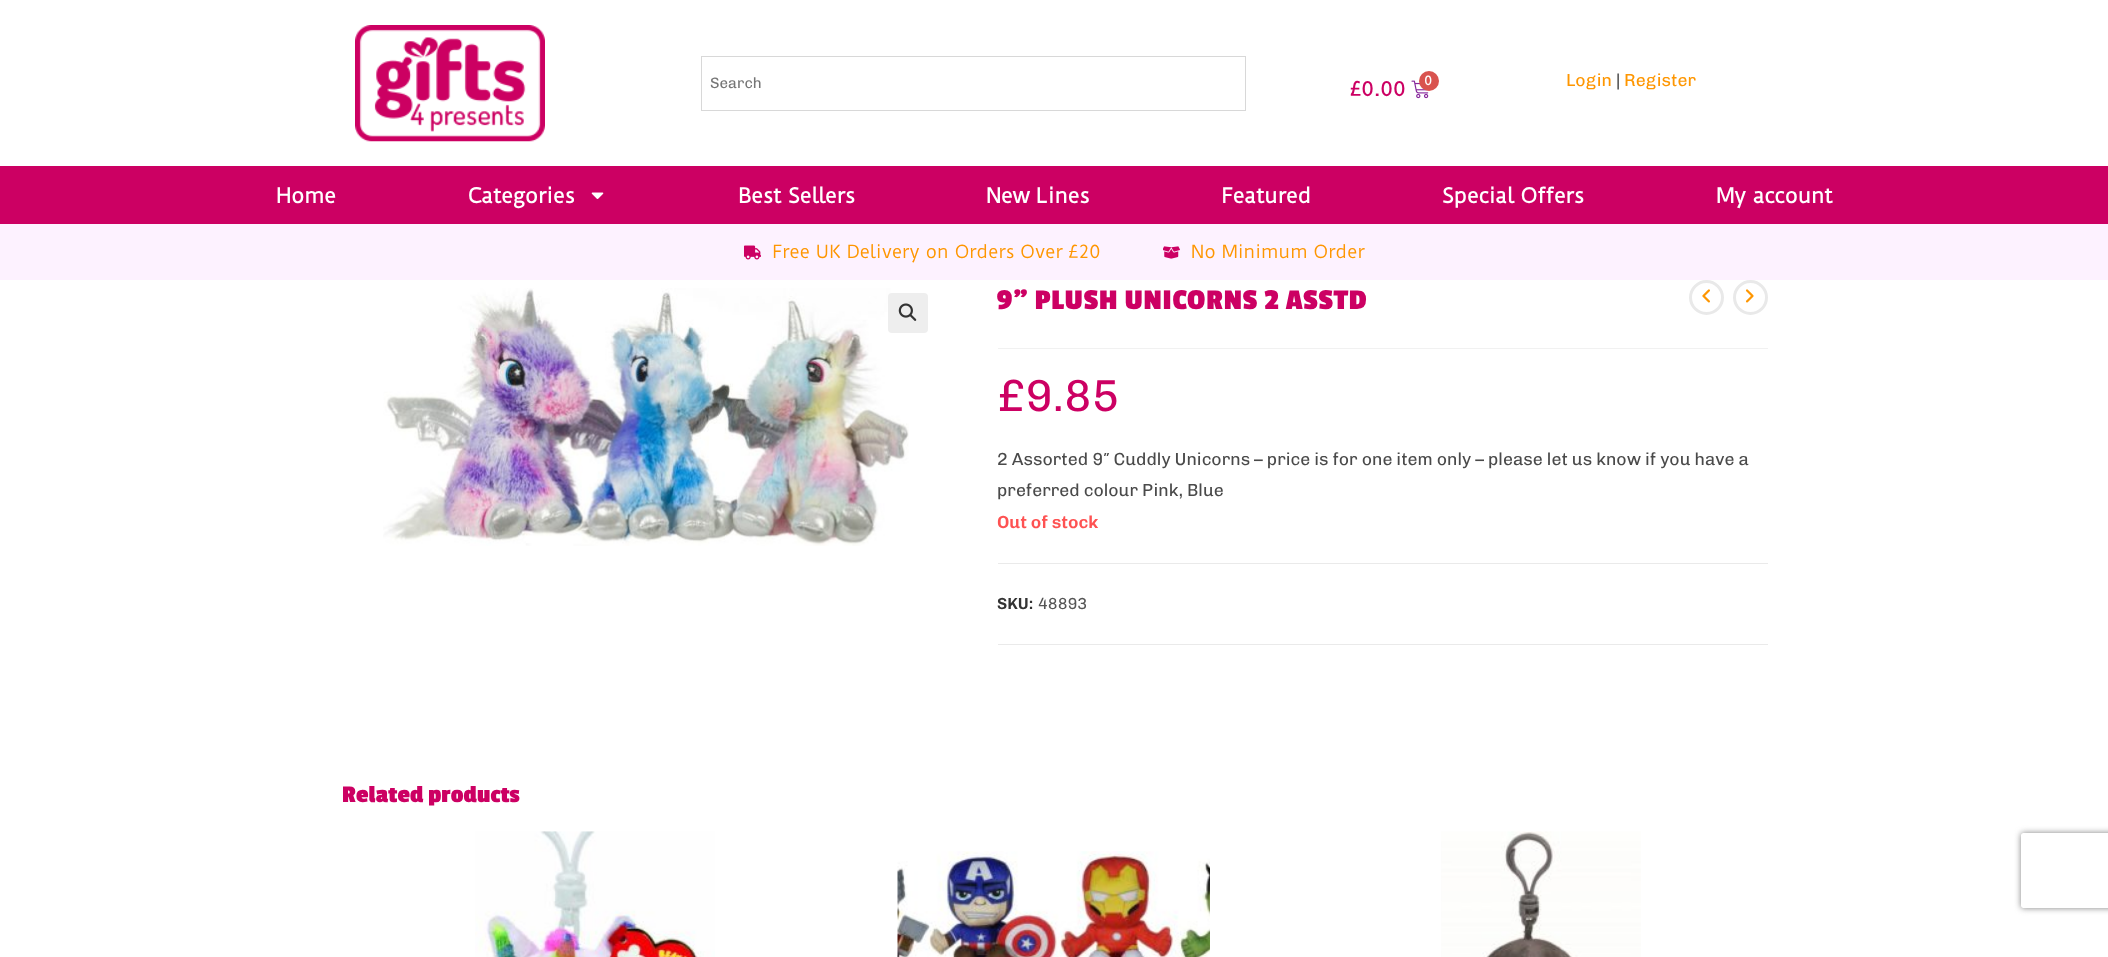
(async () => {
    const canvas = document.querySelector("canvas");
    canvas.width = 2108;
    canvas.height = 957;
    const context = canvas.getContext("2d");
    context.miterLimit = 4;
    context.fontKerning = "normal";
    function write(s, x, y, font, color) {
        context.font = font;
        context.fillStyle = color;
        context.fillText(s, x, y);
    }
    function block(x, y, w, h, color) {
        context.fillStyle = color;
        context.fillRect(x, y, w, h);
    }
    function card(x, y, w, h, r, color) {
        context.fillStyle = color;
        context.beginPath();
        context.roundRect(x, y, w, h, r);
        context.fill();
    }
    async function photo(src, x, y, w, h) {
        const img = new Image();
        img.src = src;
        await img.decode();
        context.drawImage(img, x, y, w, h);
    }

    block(0, 0, 2108, 957, "rgb(255, 255, 255)");
    await photo("media/1.png", 355, 25, 190, 117);
    context.strokeStyle = "rgb(216, 216, 216)";
    context.strokeRect(701.5, 56.5, 544, 54);
    write("Search", 710, 88, "15px Chivo", "rgb(117, 117, 117)");
    write("£0.00", 1350, 96, "bold 19px Duru Sans", "rgb(204, 0, 99)");
    await photo("media/2.png", 1411, 80, 18, 19);
    context.fillStyle = "rgb(217, 83, 79)";
    context.beginPath();
    context.arc(1429, 81, 10, 0, Math.PI * 2);
    context.fill();
    write("0", 1424, 85, "bold 12px Duru Sans", "rgb(255, 255, 255)");
    write("Login", 1566, 86, "17.5px Chivo", "rgb(254, 150, 1)");
    write("|", 1616, 86, "17.5px Chivo", "rgb(51, 51, 51)");
    write("Register", 1624, 86, "17.5px Chivo", "rgb(254, 150, 1)");
    block(0, 166, 2108, 58, "rgb(204, 0, 99)");
    write("Home", 276, 203, "bold 20px Duru Sans", "rgb(255, 255, 255)");
    write("Categories", 468, 203, "bold 20px Duru Sans", "rgb(255, 255, 255)");
    await photo("media/3.png", 591, 192, 13, 7);
    write("Best Sellers", 738, 203, "bold 20px Duru Sans", "rgb(255, 255, 255)");
    write("New Lines", 986, 203, "bold 20px Duru Sans", "rgb(255, 255, 255)");
    write("Featured", 1221, 203, "bold 20px Duru Sans", "rgb(255, 255, 255)");
    write("Special Offers", 1442, 203, "bold 20px Duru Sans", "rgb(255, 255, 255)");
    write("My account", 1716, 203, "bold 20px Duru Sans", "rgb(255, 255, 255)");
    block(0, 224, 2108, 56, "rgb(253, 242, 255)");
    await photo("media/4.png", 744, 245, 17, 15);
    write("Free UK Delivery on Orders Over £20", 772, 258, "17.5px Duru Sans", "rgb(254, 150, 1)");
    await photo("media/5.png", 1163, 246, 17, 13);
    write("No Minimum Order", 1191, 258, "17.5px Duru Sans", "rgb(254, 150, 1)");
    await photo("media/6.png", 383, 288, 526, 258);
    card(888, 293, 40, 40, 4, "rgb(238, 238, 238)");
    await photo("media/7.png", 898, 303, 19, 18);
    context.beginPath();
    context.arc(1706.5, 297.5, 16, 0, Math.PI * 2);
    context.strokeStyle = "rgb(233, 233, 233)";
    context.lineWidth = 3;
    context.stroke();
    await photo("media/8.png", 1702, 289, 8, 14);
    context.beginPath();
    context.arc(1750.5, 297.5, 16, 0, Math.PI * 2);
    context.stroke();
    await photo("media/9.png", 1745, 289, 9, 14);
    block(998, 348, 770, 1, "rgb(241, 241, 241)");
    context.letterSpacing = "0.75px";
    write("9” PLUSH UNICORNS 2 ASSTD", 997, 309, "bold 30px Passion One", "rgb(204, 0, 99)");
    context.letterSpacing = "0px";
    write("£9.85", 997, 411, "45px Chivo", "rgb(204, 0, 99)");
    write("2 Assorted 9″ Cuddly Unicorns – price is for one item only – please let us know if you have a", 997, 465, "17.5px Chivo", "rgb(74, 74, 74)");
    write("preferred colour Pink, Blue", 997, 496, "17.5px Chivo", "rgb(74, 74, 74)");
    write("Out of stock", 997, 528, "600 17.5px Chivo", "rgb(254, 82, 82)");
    block(998, 563, 770, 1, "rgb(234, 234, 234)");
    block(998, 644, 770, 1, "rgb(234, 234, 234)");
    write("SKU:", 997, 609, "600 16px Chivo", "rgb(51, 51, 51)");
    write("48893", 1038, 609, "16px Chivo", "rgb(85, 85, 85)");
    write("Related products", 342, 802, "bold 25px Passion One", "rgb(204, 0, 99)");
    await photo("media/10.png", 475, 831, 240, 126);
    await photo("media/11.png", 897, 851, 313, 106);
    await photo("media/12.png", 1441, 831, 200, 126);
    context.save();
    context.beginPath();
    context.moveTo(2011, 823);
    context.lineTo(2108, 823);
    context.lineTo(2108, 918);
    context.lineTo(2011, 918);
    context.closePath();
    context.moveTo(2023.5, 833);
    context.lineTo(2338.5, 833);
    context.bezierCurveTo(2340, 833, 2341, 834, 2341, 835.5);
    context.lineTo(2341, 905.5);
    context.bezierCurveTo(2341, 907, 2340, 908, 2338.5, 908);
    context.lineTo(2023.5, 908);
    context.bezierCurveTo(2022, 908, 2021, 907, 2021, 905.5);
    context.lineTo(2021, 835.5);
    context.bezierCurveTo(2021, 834, 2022, 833, 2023.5, 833);
    context.closePath();
    context.clip("evenodd");
    context.fillStyle = "rgb(128, 128, 128)";
    context.filter = "blur(3px)";
    context.beginPath();
    context.roundRect(2021, 833, 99, 75, 2.5);
    context.fill();
    context.filter = "none";
    context.restore();
})();
